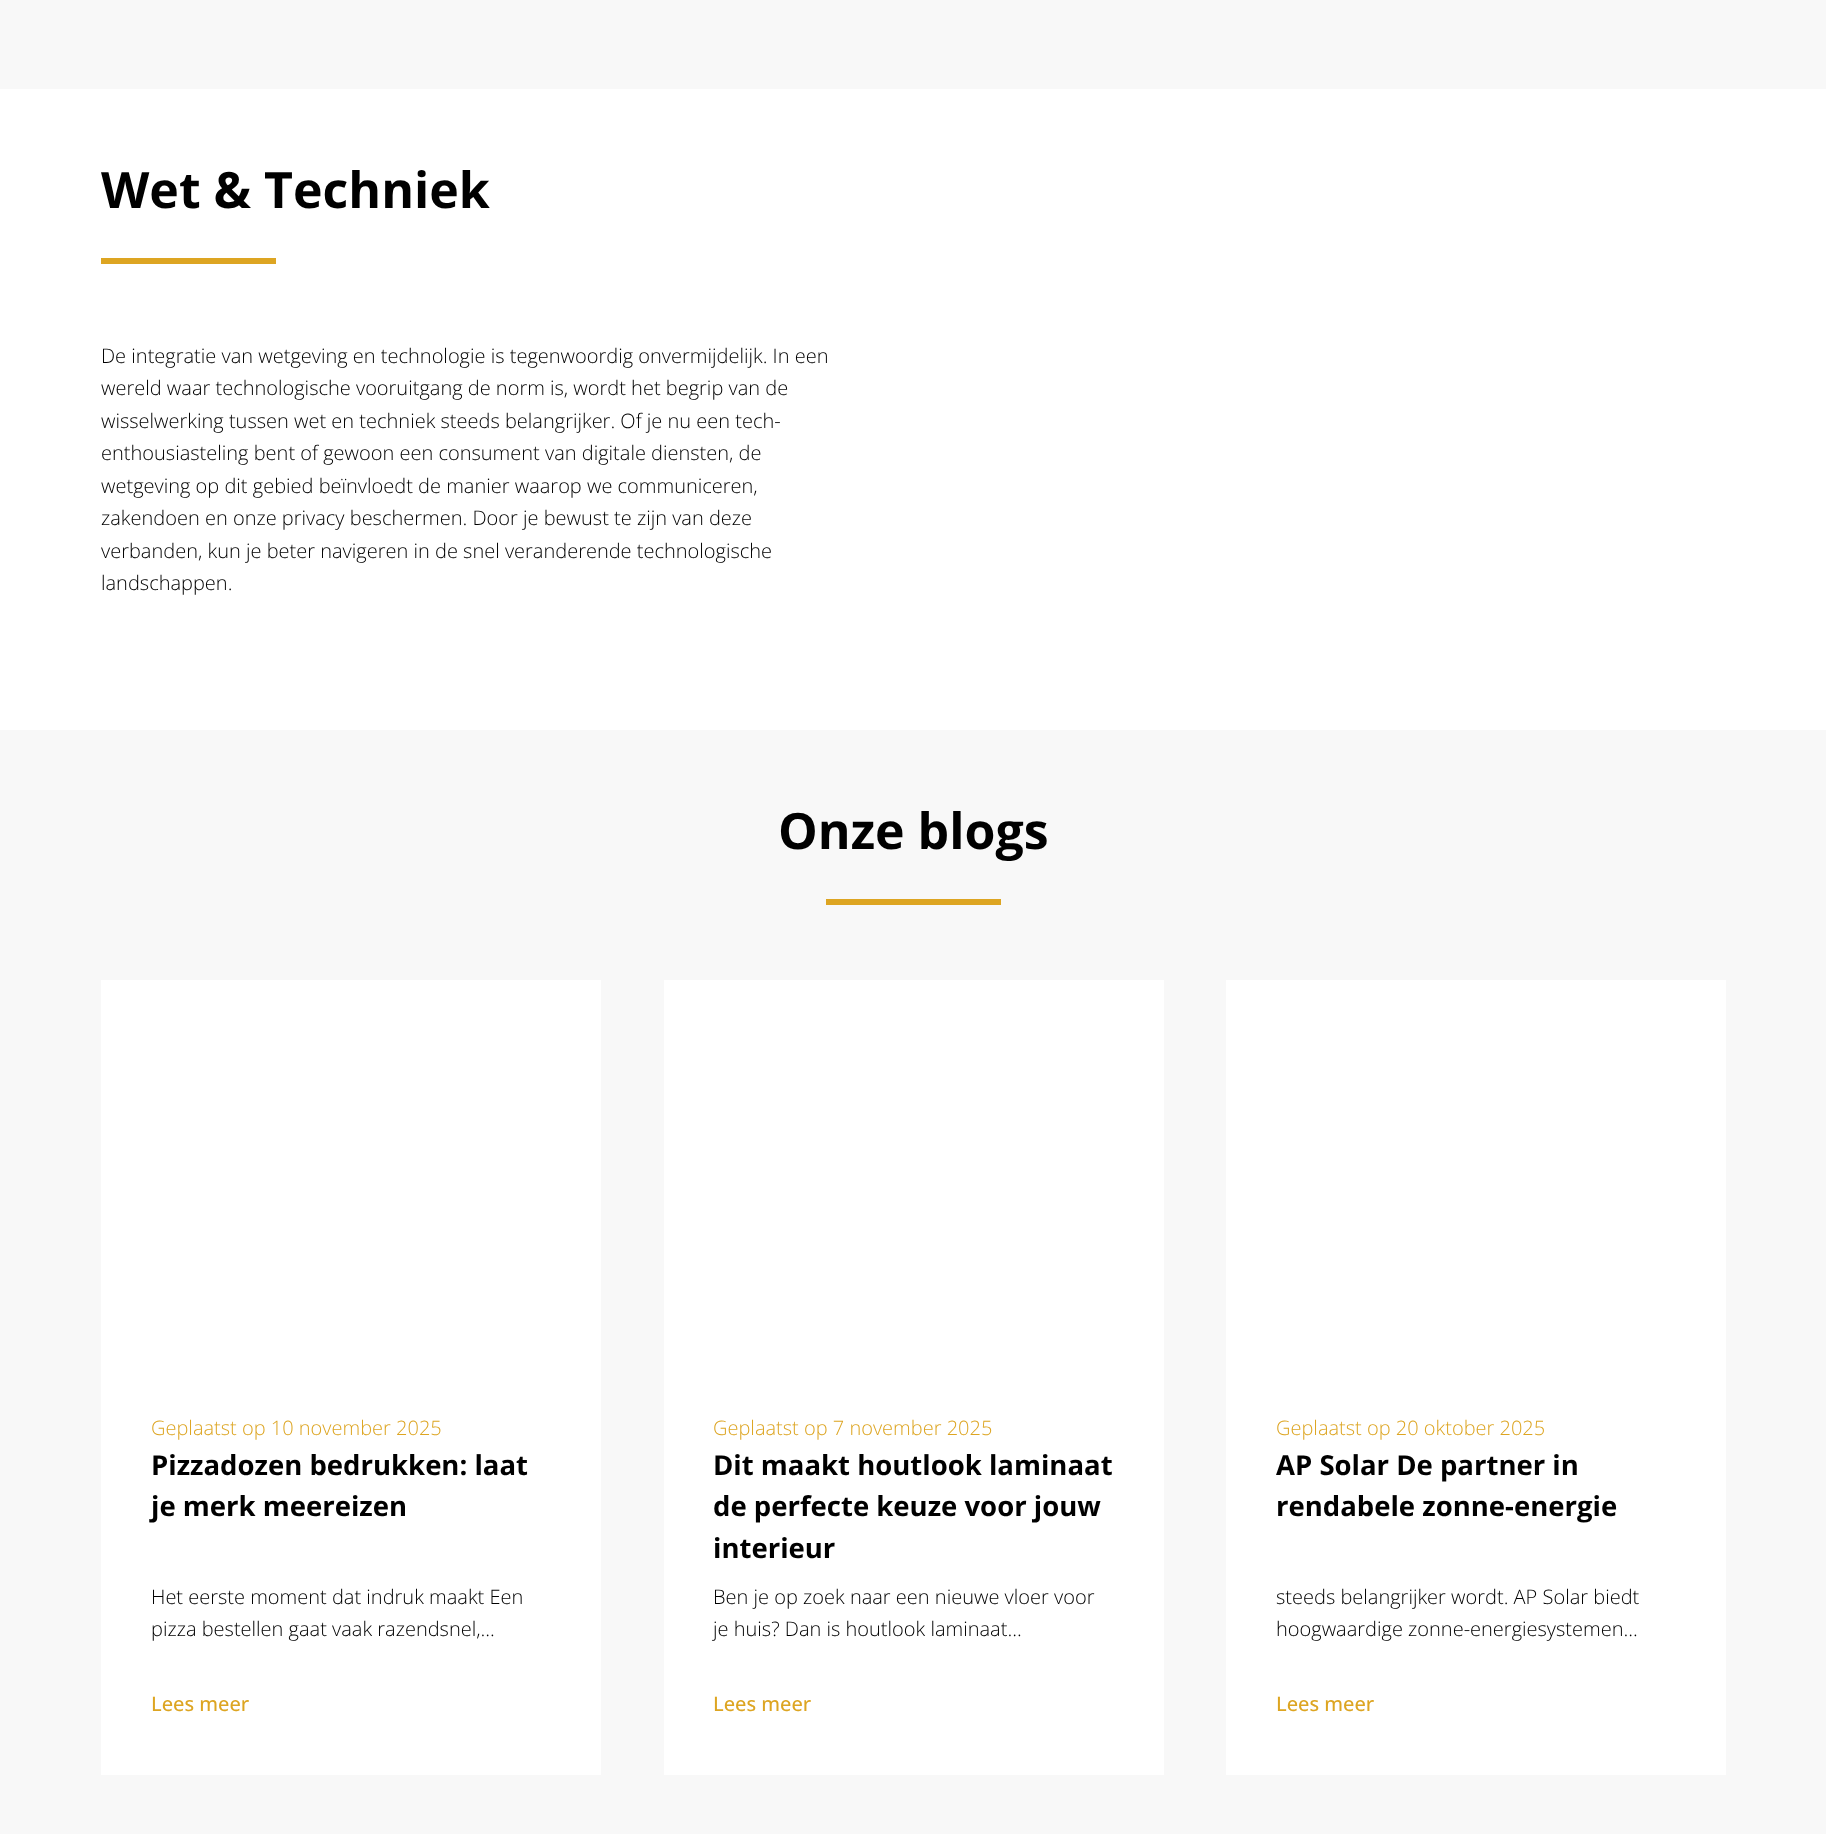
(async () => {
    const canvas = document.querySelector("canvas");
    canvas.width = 1826;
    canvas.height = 1834;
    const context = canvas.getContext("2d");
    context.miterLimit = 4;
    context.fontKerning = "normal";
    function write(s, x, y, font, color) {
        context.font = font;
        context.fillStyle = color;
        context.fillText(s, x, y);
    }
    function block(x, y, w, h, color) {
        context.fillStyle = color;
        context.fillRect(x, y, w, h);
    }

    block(0, 0, 1826, 1834, "rgb(255, 255, 255)");
    block(0, 0, 1826, 89, "rgb(248, 248, 248)");
    write("Wet & Techniek", 101, 208, "bold 50px Open Sans", "rgb(0, 0, 0)");
    block(101, 258, 175, 6, "rgb(221, 165, 34)");
    write("De integratie van wetgeving en technologie is tegenwoordig onvermijdelijk. In een", 101, 363, "300 20px Open Sans", "rgb(0, 0, 0)");
    write("wereld waar technologische vooruitgang de norm is, wordt het begrip van de", 101, 395, "300 20px Open Sans", "rgb(0, 0, 0)");
    write("wisselwerking tussen wet en techniek steeds belangrijker. Of je nu een tech-", 101, 428, "300 20px Open Sans", "rgb(0, 0, 0)");
    write("enthousiasteling bent of gewoon een consument van digitale diensten, de", 101, 460, "300 20px Open Sans", "rgb(0, 0, 0)");
    write("wetgeving op dit gebied beïnvloedt de manier waarop we communiceren,", 101, 493, "300 20px Open Sans", "rgb(0, 0, 0)");
    write("zakendoen en onze privacy beschermen. Door je bewust te zijn van deze", 101, 525, "300 20px Open Sans", "rgb(0, 0, 0)");
    write("verbanden, kun je beter navigeren in de snel veranderende technologische", 101, 558, "300 20px Open Sans", "rgb(0, 0, 0)");
    write("landschappen.", 101, 590, "300 20px Open Sans", "rgb(0, 0, 0)");
    block(0, 730, 1826, 1104, "rgb(248, 248, 248)");
    write("Onze blogs", 778, 849, "bold 50px Open Sans", "rgb(0, 0, 0)");
    block(826, 899, 175, 6, "rgb(221, 165, 34)");
    block(101, 980, 500, 795, "rgb(255, 255, 255)");
    write("Geplaatst op 10 november 2025", 151, 1435, "300 20px Open Sans", "rgb(221, 165, 34)");
    write("Pizzadozen bedrukken: laat", 151, 1475, "bold 27.5px Open Sans", "rgb(0, 0, 0)");
    write("je merk meereizen", 151, 1516, "bold 27.5px Open Sans", "rgb(0, 0, 0)");
    write("Het eerste moment dat indruk maakt Een", 151, 1604, "300 20px Open Sans", "rgb(0, 0, 0)");
    write("pizza bestellen gaat vaak razendsnel,...", 151, 1636, "300 20px Open Sans", "rgb(0, 0, 0)");
    write("Lees meer", 151, 1711, "500 20px Open Sans", "rgb(221, 165, 34)");
    block(664, 980, 500, 795, "rgb(255, 255, 255)");
    write("Geplaatst op 7 november 2025", 713, 1435, "300 20px Open Sans", "rgb(221, 165, 34)");
    write("Dit maakt houtlook laminaat", 713, 1475, "bold 27.5px Open Sans", "rgb(0, 0, 0)");
    write("de perfecte keuze voor jouw", 713, 1516, "bold 27.5px Open Sans", "rgb(0, 0, 0)");
    write("interieur", 713, 1558, "bold 27.5px Open Sans", "rgb(0, 0, 0)");
    write("Ben je op zoek naar een nieuwe vloer voor", 713, 1604, "300 20px Open Sans", "rgb(0, 0, 0)");
    write("je huis? Dan is houtlook laminaat...", 713, 1636, "300 20px Open Sans", "rgb(0, 0, 0)");
    write("Lees meer", 713, 1711, "500 20px Open Sans", "rgb(221, 165, 34)");
    block(1226, 980, 500, 795, "rgb(255, 255, 255)");
    write("Geplaatst op 20 oktober 2025", 1276, 1435, "300 20px Open Sans", "rgb(221, 165, 34)");
    write("AP Solar De partner in", 1276, 1475, "bold 27.5px Open Sans", "rgb(0, 0, 0)");
    write("rendabele zonne-energie", 1276, 1516, "bold 27.5px Open Sans", "rgb(0, 0, 0)");
    write("steeds belangrijker wordt. AP Solar biedt", 1276, 1604, "300 20px Open Sans", "rgb(0, 0, 0)");
    write("hoogwaardige zonne-energiesystemen...", 1276, 1636, "300 20px Open Sans", "rgb(0, 0, 0)");
    write("Lees meer", 1276, 1711, "500 20px Open Sans", "rgb(221, 165, 34)");
})();
